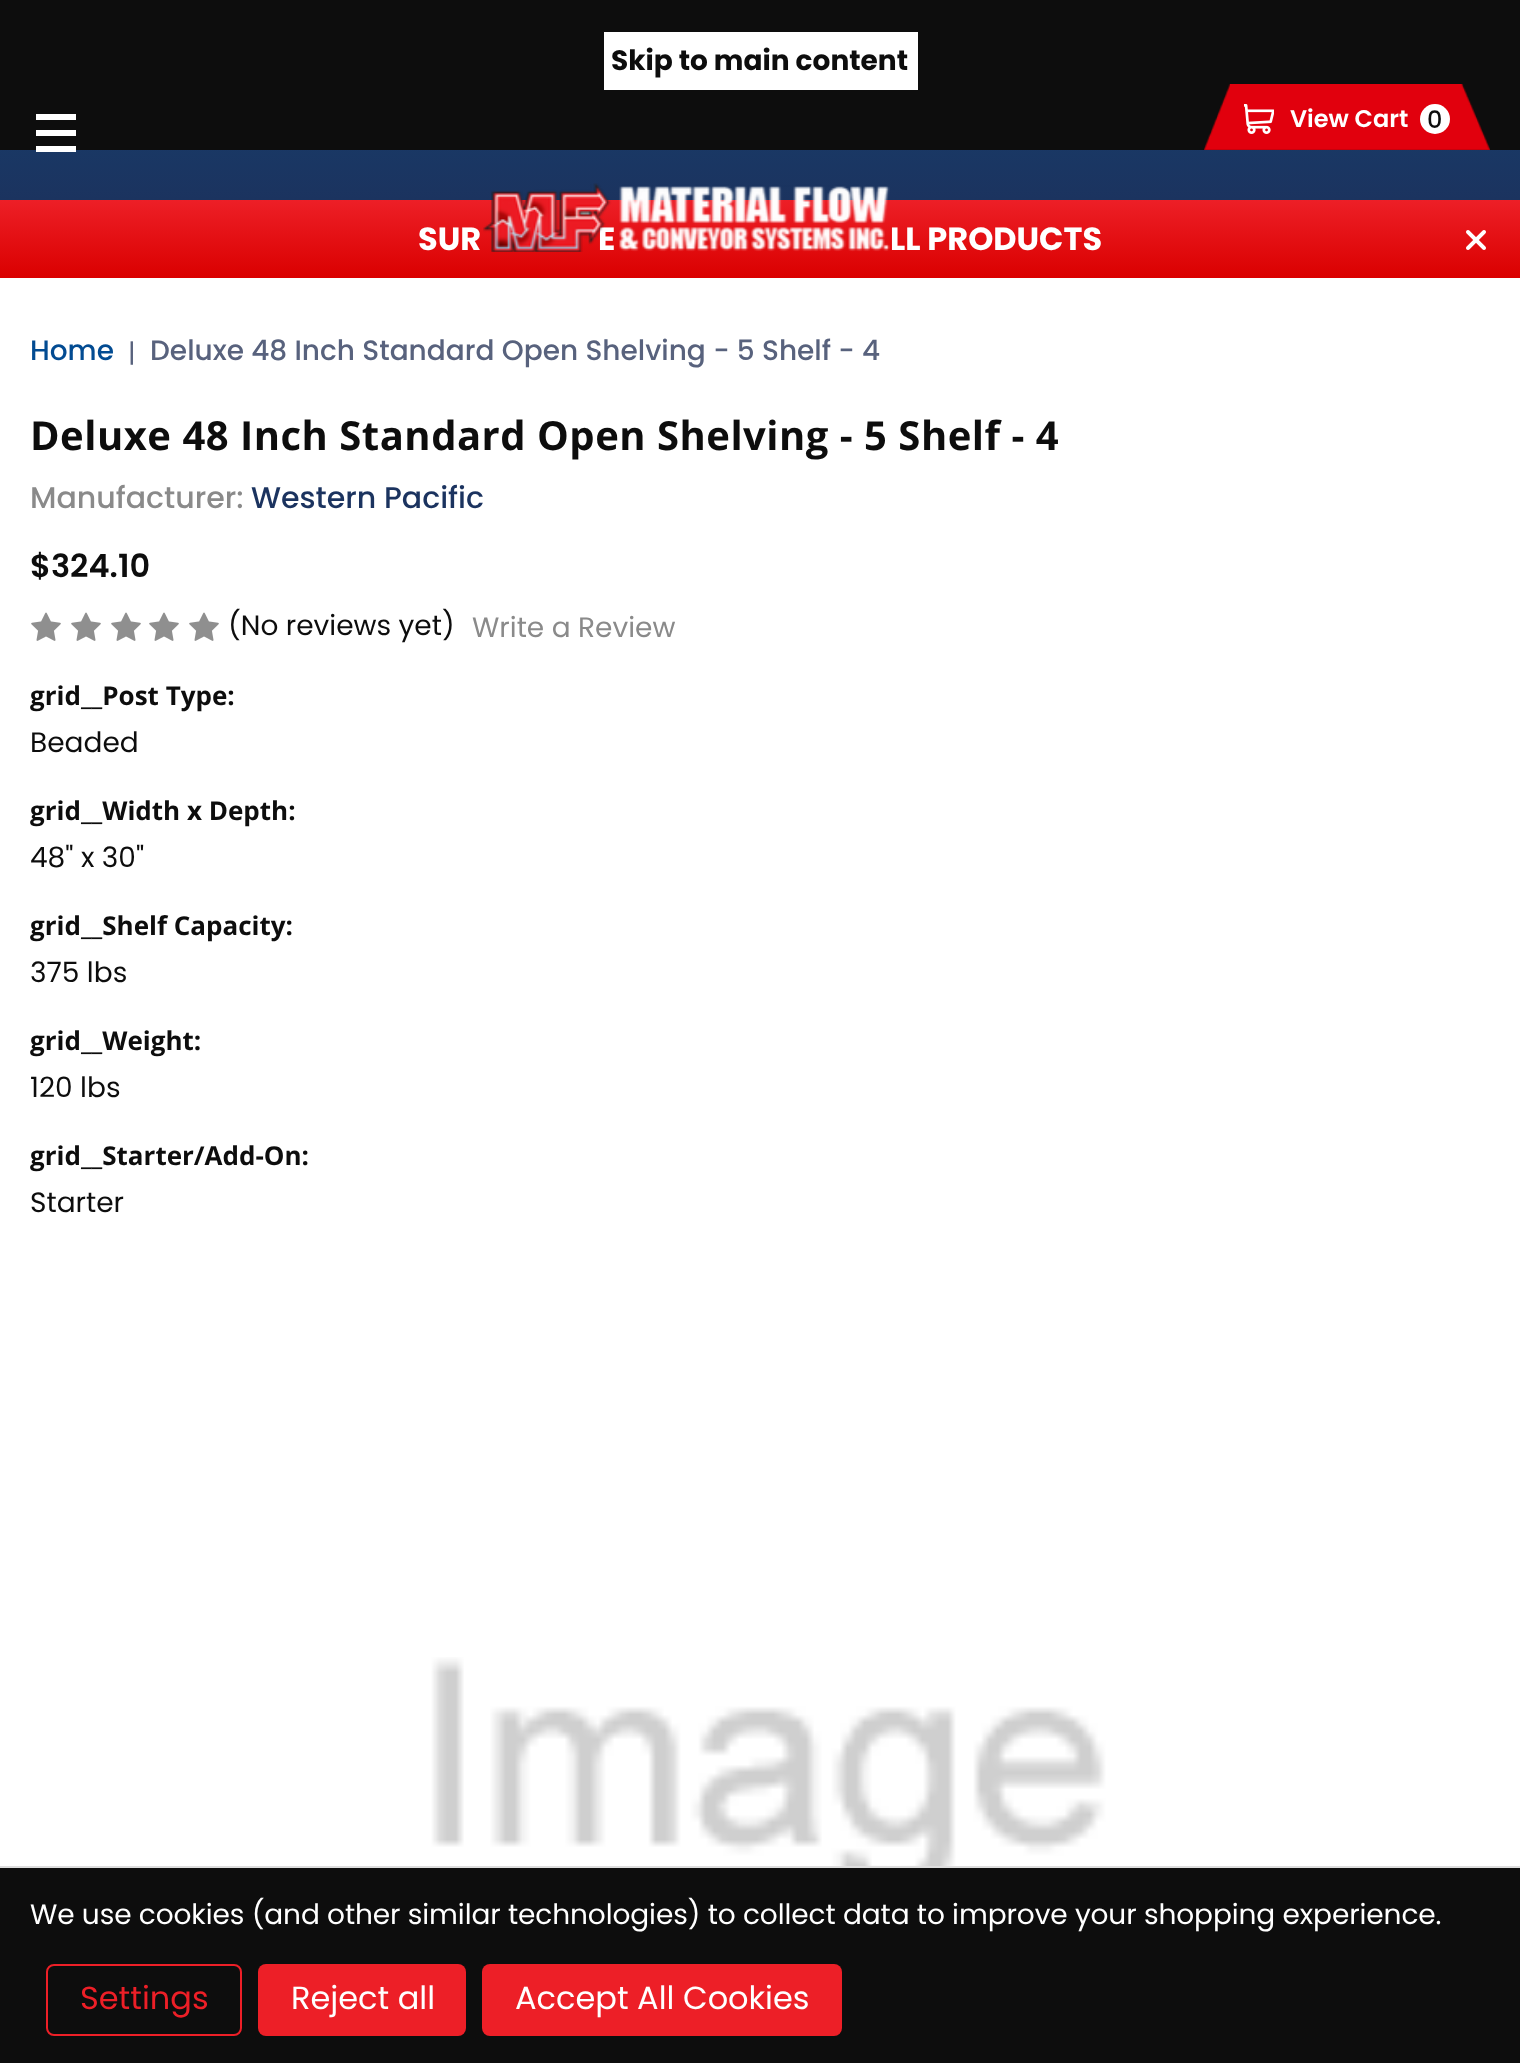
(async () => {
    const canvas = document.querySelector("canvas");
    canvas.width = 1520;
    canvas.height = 2063;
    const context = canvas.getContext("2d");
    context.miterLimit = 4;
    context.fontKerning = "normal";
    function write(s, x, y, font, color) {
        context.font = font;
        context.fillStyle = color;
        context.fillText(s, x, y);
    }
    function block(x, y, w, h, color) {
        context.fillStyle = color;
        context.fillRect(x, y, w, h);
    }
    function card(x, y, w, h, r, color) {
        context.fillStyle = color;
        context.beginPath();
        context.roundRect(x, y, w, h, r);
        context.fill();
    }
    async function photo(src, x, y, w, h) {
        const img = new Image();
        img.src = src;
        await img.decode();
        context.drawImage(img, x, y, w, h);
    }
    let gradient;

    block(0, 0, 1520, 2063, "rgb(255, 255, 255)");
    block(0, 0, 1520, 150, "rgb(13, 13, 13)");
    block(604, 32, 314, 58, "rgb(255, 255, 255)");
    write("Skip to main content", 611, 70, "bold 28px Poppins", "rgb(13, 13, 13)");
    gradient = context.createLinearGradient(760, 0, 760, 200);
    gradient.addColorStop(0, "rgb(21, 69, 116)");
    gradient.addColorStop(1, "rgb(27, 51, 95)");
    context.fillStyle = gradient;
    context.fillRect(0, 150, 1520, 50);
    block(36, 130, 40, 6, "rgb(255, 255, 255)");
    block(36, 114, 40, 6, "rgb(255, 255, 255)");
    block(36, 146, 40, 6, "rgb(255, 255, 255)");
    await photo("media/1.png", 1204, 84, 286, 66);
    await photo("media/2.png", 1244, 104, 30, 30);
    write("View Cart", 1290, 127, "600 24px Poppins", "rgb(255, 255, 255)");
    context.beginPath();
    context.arc(1435, 119, 15, 0, Math.PI * 2);
    context.fill();
    write("0", 1427, 128, "500 24px Poppins", "rgb(13, 13, 13)");
    gradient = context.createLinearGradient(760, 278, 760, 200);
    gradient.addColorStop(0, "rgb(218, 0, 0)");
    gradient.addColorStop(1, "rgb(237, 31, 39)");
    context.fillStyle = gradient;
    context.fillRect(0, 200, 1520, 78);
    write("E", 598, 250, "bold 32px Poppins", "rgb(255, 255, 255)");
    await photo("media/3.png", 483, 183, 407, 69);
    write("SUR", 418, 250, "bold 32px Poppins", "rgb(255, 255, 255)");
    write("LL PRODUCTS", 890, 250, "bold 32px Poppins", "rgb(255, 255, 255)");
    await photo("media/4.png", 1466, 230, 20, 20);
    write("Home", 30, 360, "500 28px Poppins", "rgb(2, 75, 146)");
    write("|", 128, 362, "26px Poppins", "rgb(88, 98, 125)");
    write("Deluxe 48 Inch Standard Open Shelving - 5 Shelf - 4", 150, 360, "500 28px Poppins", "rgb(88, 98, 125)");
    context.letterSpacing = "0.5px";
    write("Deluxe 48 Inch Standard Open Shelving - 5 Shelf - 4", 30, 450, "bold 40px Open Sans", "rgb(13, 13, 13)");
    context.letterSpacing = "0px";
    write("Manufacturer:", 30, 508, "500 30px Poppins", "rgb(138, 138, 138)");
    write("Western Pacific", 251, 508, "500 30px Poppins", "rgb(27, 51, 95)");
    write("$324.10", 30, 577, "600 32px Poppins", "rgb(13, 13, 13)");
    await photo("media/5.png", 31, 612, 30, 29);
    await photo("media/5.png", 71, 612, 30, 29);
    await photo("media/5.png", 111, 612, 30, 29);
    await photo("media/5.png", 149, 612, 30, 29);
    await photo("media/5.png", 189, 612, 30, 29);
    write("(No reviews yet)", 228, 635, "28px Poppins", "rgb(13, 13, 13)");
    write("Write a Review", 472, 637, "28px Poppins", "rgb(138, 138, 138)");
    write("grid__Post Type:", 30, 705, "bold 26px Open Sans", "rgb(13, 13, 13)");
    write("Beaded", 30, 752, "28px Poppins", "rgb(13, 13, 13)");
    write("grid__Width x Depth:", 30, 820, "bold 26px Open Sans", "rgb(13, 13, 13)");
    write("48\" x 30\"", 30, 867, "28px Poppins", "rgb(13, 13, 13)");
    write("grid__Shelf Capacity:", 30, 935, "bold 26px Open Sans", "rgb(13, 13, 13)");
    write("375 lbs", 30, 982, "28px Poppins", "rgb(13, 13, 13)");
    write("grid__Weight:", 30, 1050, "bold 26px Open Sans", "rgb(13, 13, 13)");
    write("120 lbs", 30, 1097, "28px Poppins", "rgb(13, 13, 13)");
    write("grid__Starter/Add-On:", 30, 1165, "bold 26px Open Sans", "rgb(13, 13, 13)");
    write("Starter", 30, 1212, "28px Poppins", "rgb(13, 13, 13)");
    await photo("media/6.png", 340, 1657, 840, 209);
    block(0, 1868, 1520, 195, "rgb(13, 13, 13)");
    block(0, 1866, 1520, 2, "rgb(221, 221, 221)");
    context.letterSpacing = "-0.1px";
    write("We use cookies (and other similar technologies) to collect data to improve your shopping experience.", 30, 1924, "28px Poppins", "rgb(255, 255, 255)");
    context.beginPath();
    context.roundRect(47, 1965, 194, 70, 7);
    context.strokeStyle = "rgb(237, 31, 39)";
    context.lineWidth = 2;
    context.stroke();
    context.letterSpacing = "0px";
    write("Settings", 80, 2009, "32px Poppins", "rgb(237, 31, 39)");
    card(258, 1964, 208, 72, 8, "rgb(237, 31, 39)");
    write("Reject all", 291, 2009, "32px Poppins", "rgb(255, 255, 255)");
    card(482, 1964, 360, 72, 8, "rgb(237, 31, 39)");
    write("Accept All Cookies", 515, 2009, "32px Poppins", "rgb(255, 255, 255)");
})();
